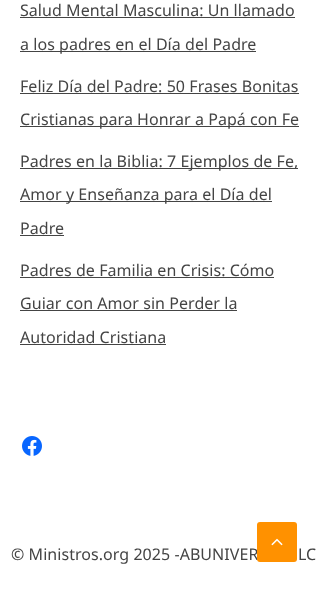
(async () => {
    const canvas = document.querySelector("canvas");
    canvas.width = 327;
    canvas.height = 592;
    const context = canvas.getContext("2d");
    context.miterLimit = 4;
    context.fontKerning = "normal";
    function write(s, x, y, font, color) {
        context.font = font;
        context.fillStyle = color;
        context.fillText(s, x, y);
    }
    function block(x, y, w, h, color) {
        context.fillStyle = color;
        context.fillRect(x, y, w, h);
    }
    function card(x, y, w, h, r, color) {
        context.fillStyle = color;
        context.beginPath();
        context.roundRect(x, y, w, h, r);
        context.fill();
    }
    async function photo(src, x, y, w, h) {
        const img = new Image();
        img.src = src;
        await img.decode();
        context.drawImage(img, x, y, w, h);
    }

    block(0, 0, 327, 592, "rgb(255, 255, 255)");
    context.letterSpacing = "0.05px";
    write("Salud Mental Masculina: Un llamado", 20, 16, "16px Noto Sans", "rgb(68, 68, 68)");
    block(20, 17, 275, 1, "rgb(68, 68, 68)");
    block(20, 51, 236, 1, "rgb(68, 68, 68)");
    write("a los padres en el Día del Padre", 20, 50, "16px Noto Sans", "rgb(68, 68, 68)");
    write("Feliz Día del Padre: 50 Frases Bonitas", 20, 92, "16px Noto Sans", "rgb(68, 68, 68)");
    block(20, 93, 279, 1, "rgb(68, 68, 68)");
    block(20, 126, 279, 1, "rgb(68, 68, 68)");
    write("Cristianas para Honrar a Papá con Fe", 20, 125, "16px Noto Sans", "rgb(68, 68, 68)");
    block(20, 168, 278, 1, "rgb(68, 68, 68)");
    write("Padres en la Biblia: 7 Ejemplos de Fe,", 20, 167, "16px Noto Sans", "rgb(68, 68, 68)");
    block(20, 201, 252, 1, "rgb(68, 68, 68)");
    write("Amor y Enseñanza para el Día del", 20, 200, "16px Noto Sans", "rgb(68, 68, 68)");
    write("Padre", 20, 234, "16px Noto Sans", "rgb(68, 68, 68)");
    block(20, 235, 44, 1, "rgb(68, 68, 68)");
    write("Padres de Familia en Crisis: Cómo", 20, 276, "16px Noto Sans", "rgb(68, 68, 68)");
    block(20, 277, 254, 1, "rgb(68, 68, 68)");
    write("Guiar con Amor sin Perder la", 20, 309, "16px Noto Sans", "rgb(68, 68, 68)");
    block(20, 310, 217, 1, "rgb(68, 68, 68)");
    write("Autoridad Cristiana", 20, 343, "16px Noto Sans", "rgb(68, 68, 68)");
    block(20, 344, 146, 1, "rgb(68, 68, 68)");
    await photo("media/1.png", 22, 436, 20, 20);
    write("© Ministros.org 2025 -ABUNIVER", 11, 560, "16px Noto Sans", "rgb(68, 68, 68)");
    card(257, 522, 40, 40, 3, "rgb(255, 145, 0)");
    await photo("media/2.png", 271, 538, 12, 8);
    write("LC", 298, 560, "16px Noto Sans", "rgb(68, 68, 68)");
})();
